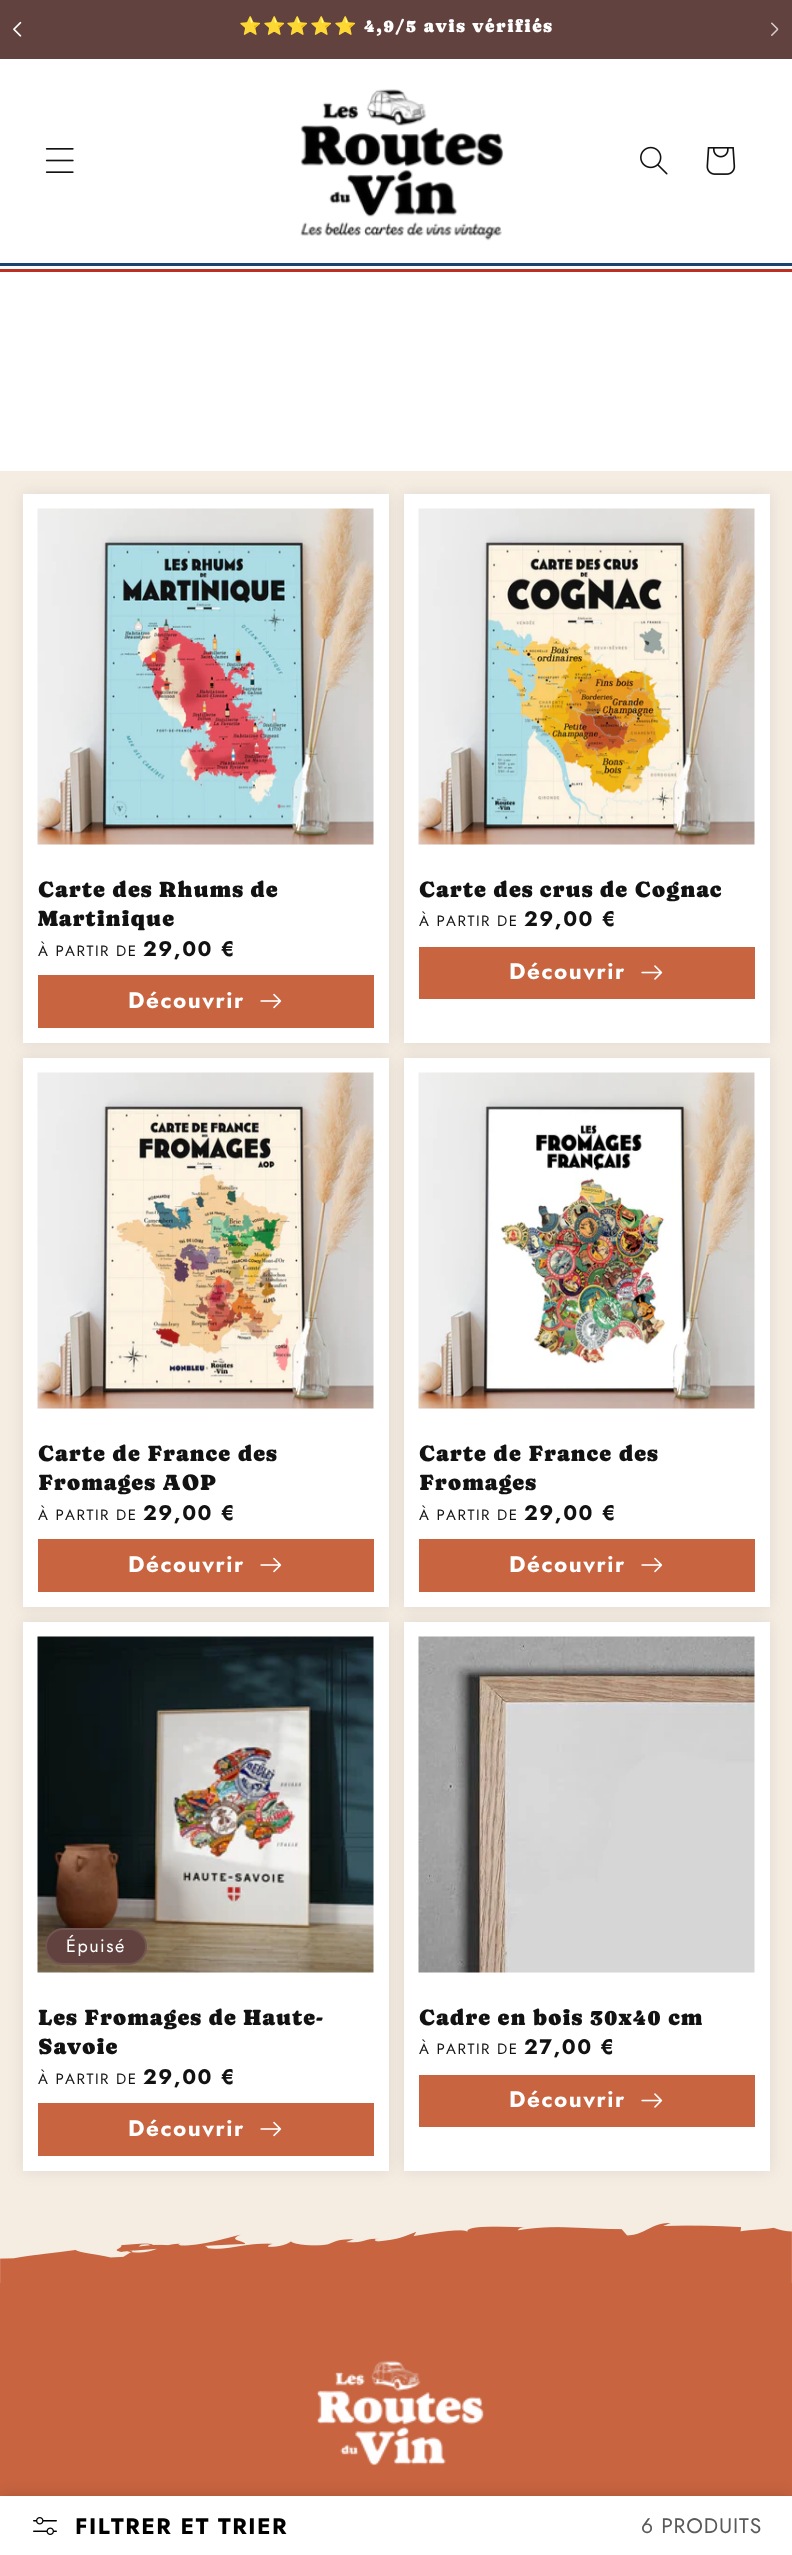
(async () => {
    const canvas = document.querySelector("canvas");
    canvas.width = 792;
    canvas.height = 2555;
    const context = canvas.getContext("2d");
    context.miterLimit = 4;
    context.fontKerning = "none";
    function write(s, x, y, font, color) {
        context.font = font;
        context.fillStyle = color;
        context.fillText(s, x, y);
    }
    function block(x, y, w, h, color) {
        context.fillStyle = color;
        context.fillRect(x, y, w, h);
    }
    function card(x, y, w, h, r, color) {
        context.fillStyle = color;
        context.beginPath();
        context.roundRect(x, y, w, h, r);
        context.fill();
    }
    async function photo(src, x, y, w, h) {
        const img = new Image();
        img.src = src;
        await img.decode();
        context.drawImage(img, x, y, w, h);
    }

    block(0, 0, 792, 2555, "rgb(255, 255, 255)");
    block(0, 0, 792, 59, "rgb(97, 66, 62)");
    await photo("media/1.png", 13, 21, 9, 16);
    context.letterSpacing = "1.5px";
    write("⭐⭐⭐⭐⭐", 239, 32, "18px Noto Color Emoji", "rgb(255, 255, 255)");
    write("4,9/5 avis vérifiés", 364, 32, "18px Caprasimo", "rgb(255, 255, 255)");
    await photo("media/2.png", 771, 22, 8, 14);
    await photo("media/3.png", 45, 148, 29, 25);
    await photo("media/4.png", 300, 89, 204, 152);
    await photo("media/5.png", 640, 146, 28, 29);
    await photo("media/6.png", 706, 147, 30, 28);
    block(0, 263, 792, 3, "rgb(30, 66, 110)");
    block(0, 269, 792, 3, "rgb(188, 48, 34)");
    block(0, 471, 792, 1812, "rgb(245, 237, 226)");
    context.fillStyle = "rgba(114, 108, 108, 0.16)";
    context.filter = "blur(7.5px)";
    context.beginPath();
    context.rect(23, 494, 366, 549);
    context.fill();
    context.filter = "none";
    block(23, 494, 366, 549, "rgb(255, 255, 255)");
    await photo("media/7.png", 37, 508, 337, 337);
    context.letterSpacing = "0.9px";
    write("Carte des Rhums de", 38, 897, "22.5px Caprasimo", "rgb(18, 18, 18)");
    write("Martinique", 38, 926, "22.5px Caprasimo", "rgb(18, 18, 18)");
    context.letterSpacing = "1.5px";
    write("À PARTIR DE", 38, 956, "15px Jost", "rgb(18, 18, 18)");
    write("29,00 €", 143, 956, "bold 21px Jost", "rgb(18, 18, 18)");
    block(38, 975, 336, 53, "rgb(200, 100, 64)");
    write("Découvrir", 128, 1008, "bold 22.5px Jost", "rgb(255, 255, 255)");
    await photo("media/8.png", 260, 993, 22, 16);
    context.fillStyle = "rgba(114, 108, 108, 0.16)";
    context.filter = "blur(7.5px)";
    context.beginPath();
    context.rect(404, 494, 366, 549);
    context.fill();
    context.filter = "none";
    block(404, 494, 366, 549, "rgb(255, 255, 255)");
    await photo("media/9.png", 418, 508, 337, 337);
    context.letterSpacing = "0.9px";
    write("Carte des crus de Cognac", 419, 897, "22.5px Caprasimo", "rgb(18, 18, 18)");
    context.letterSpacing = "1.5px";
    write("À PARTIR DE", 419, 926, "15px Jost", "rgb(18, 18, 18)");
    write("29,00 €", 524, 926, "bold 21px Jost", "rgb(18, 18, 18)");
    block(419, 947, 336, 52, "rgb(200, 100, 64)");
    write("Découvrir", 509, 979, "bold 22.5px Jost", "rgb(255, 255, 255)");
    await photo("media/10.png", 641, 965, 22, 15);
    context.fillStyle = "rgba(114, 108, 108, 0.16)";
    context.filter = "blur(7.5px)";
    context.beginPath();
    context.rect(23, 1058, 366, 549);
    context.fill();
    context.filter = "none";
    block(23, 1058, 366, 549, "rgb(255, 255, 255)");
    await photo("media/11.png", 37, 1072, 337, 337);
    context.letterSpacing = "0.9px";
    write("Carte de France des", 38, 1461, "22.5px Caprasimo", "rgb(18, 18, 18)");
    write("Fromages AOP", 38, 1490, "22.5px Caprasimo", "rgb(18, 18, 18)");
    context.letterSpacing = "1.5px";
    write("À PARTIR DE", 38, 1520, "15px Jost", "rgb(18, 18, 18)");
    write("29,00 €", 143, 1520, "bold 21px Jost", "rgb(18, 18, 18)");
    block(38, 1539, 336, 53, "rgb(200, 100, 64)");
    write("Découvrir", 128, 1572, "bold 22.5px Jost", "rgb(255, 255, 255)");
    await photo("media/8.png", 260, 1557, 22, 16);
    context.fillStyle = "rgba(114, 108, 108, 0.16)";
    context.filter = "blur(7.5px)";
    context.beginPath();
    context.rect(404, 1058, 366, 549);
    context.fill();
    context.filter = "none";
    block(404, 1058, 366, 549, "rgb(255, 255, 255)");
    await photo("media/12.png", 418, 1072, 337, 337);
    context.letterSpacing = "0.9px";
    write("Carte de France des", 419, 1461, "22.5px Caprasimo", "rgb(18, 18, 18)");
    write("Fromages", 419, 1490, "22.5px Caprasimo", "rgb(18, 18, 18)");
    context.letterSpacing = "1.5px";
    write("À PARTIR DE", 419, 1520, "15px Jost", "rgb(18, 18, 18)");
    write("29,00 €", 524, 1520, "bold 21px Jost", "rgb(18, 18, 18)");
    block(419, 1539, 336, 53, "rgb(200, 100, 64)");
    write("Découvrir", 509, 1572, "bold 22.5px Jost", "rgb(255, 255, 255)");
    await photo("media/8.png", 641, 1557, 22, 16);
    context.fillStyle = "rgba(114, 108, 108, 0.16)";
    context.filter = "blur(7.5px)";
    context.beginPath();
    context.rect(23, 1622, 366, 549);
    context.fill();
    context.filter = "none";
    block(23, 1622, 366, 549, "rgb(255, 255, 255)");
    await photo("media/13.png", 37, 1636, 337, 337);
    card(45, 1928, 102, 37, 18.5, "rgb(97, 66, 62)");
    context.beginPath();
    context.roundRect(46, 1929, 100, 35, 17.5);
    context.strokeStyle = "rgba(255, 255, 255, 0.1)";
    context.lineWidth = 2;
    context.stroke();
    write("Épuisé", 66, 1952, "18px Jost", "rgb(255, 255, 255)");
    context.letterSpacing = "0.9px";
    write("Les Fromages de Haute-", 38, 2025, "22.5px Caprasimo", "rgb(18, 18, 18)");
    write("Savoie", 38, 2054, "22.5px Caprasimo", "rgb(18, 18, 18)");
    context.letterSpacing = "1.5px";
    write("À PARTIR DE", 38, 2084, "15px Jost", "rgb(18, 18, 18)");
    write("29,00 €", 143, 2084, "bold 21px Jost", "rgb(18, 18, 18)");
    block(38, 2103, 336, 53, "rgb(200, 100, 64)");
    write("Découvrir", 128, 2136, "bold 22.5px Jost", "rgb(255, 255, 255)");
    await photo("media/8.png", 260, 2121, 22, 16);
    context.fillStyle = "rgba(114, 108, 108, 0.16)";
    context.filter = "blur(7.5px)";
    context.beginPath();
    context.rect(404, 1622, 366, 549);
    context.fill();
    context.filter = "none";
    block(404, 1622, 366, 549, "rgb(255, 255, 255)");
    await photo("media/14.png", 418, 1636, 337, 337);
    context.letterSpacing = "0.9px";
    write("Cadre en bois 30x40 cm", 419, 2025, "22.5px Caprasimo", "rgb(18, 18, 18)");
    context.letterSpacing = "1.5px";
    write("À PARTIR DE", 419, 2054, "15px Jost", "rgb(18, 18, 18)");
    write("27,00 €", 524, 2054, "bold 21px Jost", "rgb(18, 18, 18)");
    block(419, 2075, 336, 52, "rgb(200, 100, 64)");
    write("Découvrir", 509, 2107, "bold 22.5px Jost", "rgb(255, 255, 255)");
    await photo("media/10.png", 641, 2093, 22, 15);
    block(0, 2283, 792, 213, "rgb(200, 100, 64)");
    context.fillStyle = "rgba(0, 0, 0, 0.16)";
    context.filter = "blur(7.5px)";
    context.beginPath();
    context.rect(0, 2496, 792, 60);
    context.fill();
    context.filter = "none";
    block(0, 2496, 792, 59, "rgb(255, 255, 255)");
    await photo("media/15.png", 33, 2517, 24, 18);
    write("FILTRER ET TRIER", 75, 2534, "bold 22.5px Jost", "rgb(0, 0, 0)");
    context.letterSpacing = "0.9px";
    write("6 PRODUITS", 641, 2533, "21px Jost", "rgb(89, 89, 89)");
    await photo("media/16.png", 0, 2223, 792, 60);
    await photo("media/17.png", 316, 2360, 168, 106);
})();
